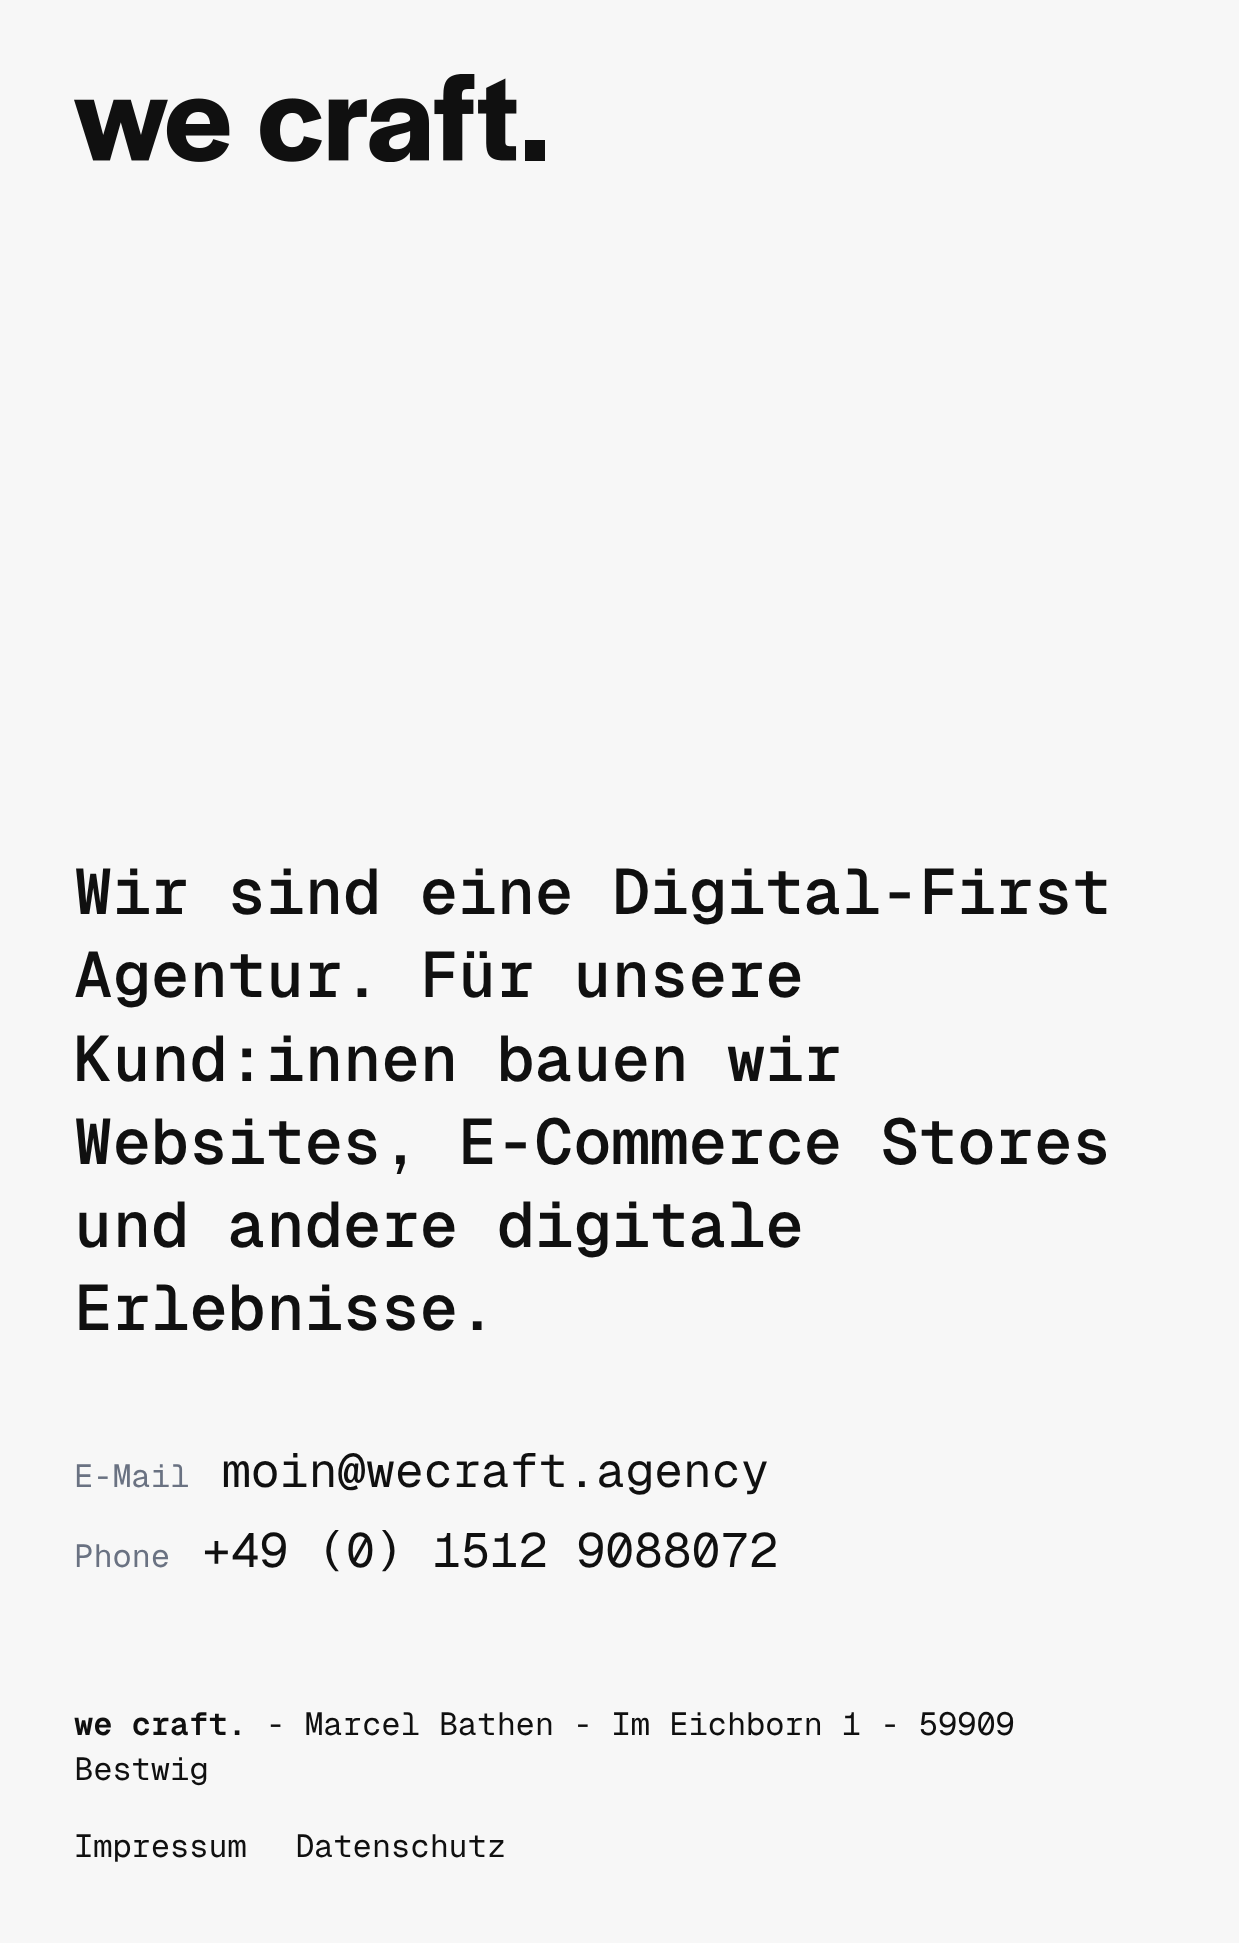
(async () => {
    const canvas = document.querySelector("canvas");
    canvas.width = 1239;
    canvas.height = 1943;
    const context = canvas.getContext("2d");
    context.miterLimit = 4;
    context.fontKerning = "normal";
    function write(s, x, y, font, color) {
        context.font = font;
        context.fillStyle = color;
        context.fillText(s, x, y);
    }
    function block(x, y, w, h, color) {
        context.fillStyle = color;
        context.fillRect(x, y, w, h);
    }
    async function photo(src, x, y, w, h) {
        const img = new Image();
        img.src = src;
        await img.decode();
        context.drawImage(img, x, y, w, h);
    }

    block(0, 0, 1239, 1943, "rgb(247, 247, 247)");
    await photo("media/1.png", 74, 74, 471, 88);
    write("Wir sind eine Digital-First", 74, 914, "600 64px Geist Mono", "rgb(16, 16, 16)");
    write("Agentur. Für unsere", 74, 997, "600 64px Geist Mono", "rgb(16, 16, 16)");
    write("Kund:innen bauen wir", 74, 1081, "600 64px Geist Mono", "rgb(16, 16, 16)");
    write("Websites, E-Commerce Stores", 74, 1164, "600 64px Geist Mono", "rgb(16, 16, 16)");
    write("und andere digitale", 74, 1247, "600 64px Geist Mono", "rgb(16, 16, 16)");
    write("Erlebnisse.", 74, 1330, "600 64px Geist Mono", "rgb(16, 16, 16)");
    write("E-Mail", 74, 1487, "32px Geist Mono", "rgb(106, 114, 130)");
    write("moin@wecraft.agency", 222, 1487, "48px Geist Mono", "rgb(16, 16, 16)");
    write("Phone", 74, 1567, "32px Geist Mono", "rgb(106, 114, 130)");
    write("+49 (0) 1512 9088072", 202, 1567, "48px Geist Mono", "rgb(16, 16, 16)");
    write("we craft.", 74, 1735, "bold 32px Geist Mono", "rgb(16, 16, 16)");
    write("- Marcel Bathen - Im Eichborn 1 - 59909", 266, 1735, "32px Geist Mono", "rgb(16, 16, 16)");
    write("Bestwig", 74, 1780, "32px Geist Mono", "rgb(16, 16, 16)");
    write("Impressum", 74, 1857, "32px Geist Mono", "rgb(16, 16, 16)");
    write("Datenschutz", 295, 1857, "32px Geist Mono", "rgb(16, 16, 16)");
})();
